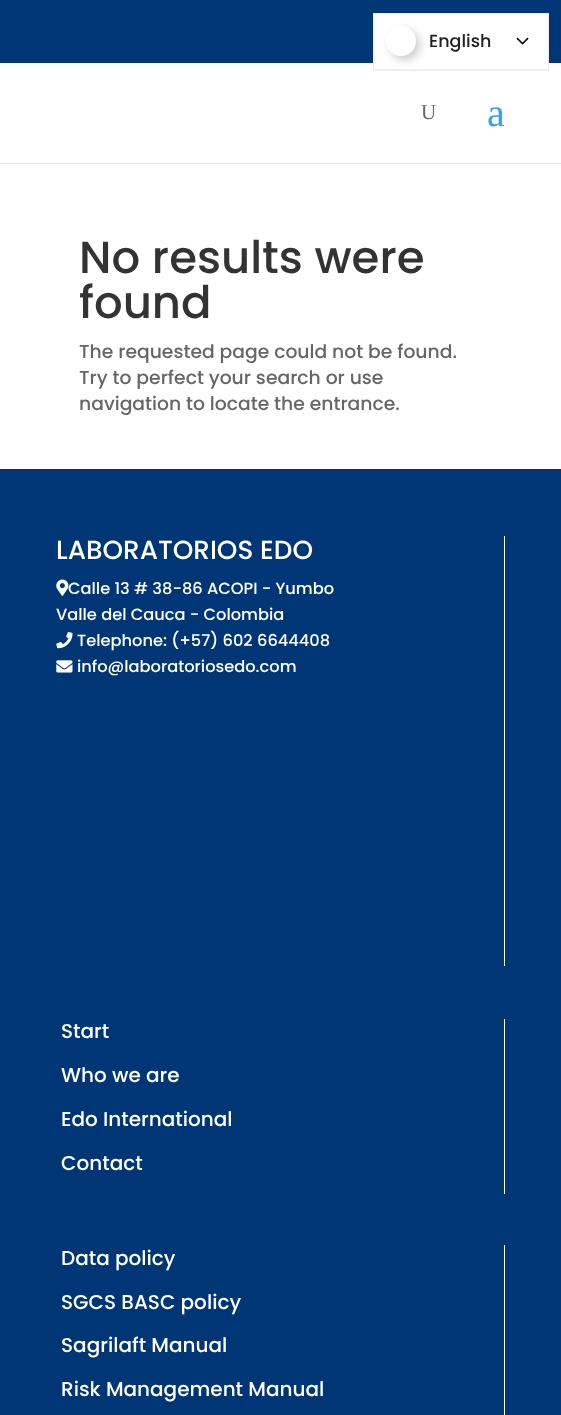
(async () => {
    const canvas = document.querySelector("canvas");
    canvas.width = 561;
    canvas.height = 1415;
    const context = canvas.getContext("2d");
    context.miterLimit = 4;
    context.fontKerning = "normal";
    function write(s, x, y, font, color) {
        context.font = font;
        context.fillStyle = color;
        context.fillText(s, x, y);
    }
    function block(x, y, w, h, color) {
        context.fillStyle = color;
        context.fillRect(x, y, w, h);
    }
    async function photo(src, x, y, w, h) {
        const img = new Image();
        img.src = src;
        await img.decode();
        context.drawImage(img, x, y, w, h);
    }

    block(0, 0, 561, 1415, "rgb(255, 255, 255)");
    block(0, 0, 561, 63, "rgb(0, 54, 118)");
    block(374, 14, 174, 49, "rgb(255, 255, 255)");
    block(373, 70, 176, 1, "rgb(238, 238, 238)");
    context.strokeStyle = "rgb(238, 238, 238)";
    context.strokeRect(373.5, 13.5, 175, 56);
    context.save();
    context.beginPath();
    context.moveTo(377, 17);
    context.lineTo(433, 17);
    context.lineTo(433, 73);
    context.lineTo(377, 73);
    context.closePath();
    context.moveTo(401, 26);
    context.bezierCurveTo(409.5, 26, 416, 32.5, 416, 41);
    context.bezierCurveTo(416, 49.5, 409.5, 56, 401, 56);
    context.bezierCurveTo(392.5, 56, 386, 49.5, 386, 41);
    context.bezierCurveTo(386, 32.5, 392.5, 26, 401, 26);
    context.closePath();
    context.clip("evenodd");
    context.fillStyle = "rgb(204, 204, 204)";
    context.filter = "blur(4px)";
    context.beginPath();
    context.roundRect(390, 30, 30, 30, 15);
    context.fill();
    context.filter = "none";
    context.restore();
    write("English", 429, 47, "500 17.5px Poppins", "rgb(34, 34, 34)");
    await photo("media/1.png", 516, 37, 13, 8);
    block(0, 163, 561, 1, "rgb(230, 230, 230)");
    write("U", 421, 119, "21px Liberation Serif", "rgb(102, 102, 102)");
    write("a", 487, 126, "40px Liberation Serif", "rgb(46, 163, 242)");
    write("No results were", 79, 273, "500 45px Poppins", "rgb(51, 51, 51)");
    write("found", 79, 318, "500 45px Poppins", "rgb(51, 51, 51)");
    write("The requested page could not be found.", 79, 358, "500 18.75px Poppins", "rgb(102, 102, 102)");
    write("Try to perfect your search or use", 79, 384, "500 18.75px Poppins", "rgb(102, 102, 102)");
    write("navigation to locate the entrance.", 79, 410, "500 18.75px Poppins", "rgb(102, 102, 102)");
    block(0, 469, 561, 946, "rgb(0, 54, 118)");
    block(504, 536, 1, 430, "rgb(255, 255, 255)");
    write("LABORATORIOS EDO", 56, 559, "500 26.25px Poppins", "rgb(255, 255, 255)");
    await photo("media/2.png", 56, 579, 13, 17);
    write("Calle 13 # 38-86 ACOPI - Yumbo", 68, 594, "500 16.25px Poppins", "rgb(255, 255, 255)");
    write("Valle del Cauca - Colombia", 56, 620, "500 16.25px Poppins", "rgb(255, 255, 255)");
    await photo("media/3.png", 56, 632, 17, 17);
    write("Telephone: (+57) 602 6644408", 77, 646, "500 16.25px Poppins", "rgb(255, 255, 255)");
    await photo("media/4.png", 56, 660, 17, 13);
    write("info@laboratoriosedo.com", 77, 672, "500 16.25px Poppins", "rgb(255, 255, 255)");
    block(504, 1019, 1, 175, "rgb(255, 255, 255)");
    write("Start", 61, 1038, "500 20px Poppins", "rgb(255, 255, 255)");
    write("Who we are", 61, 1082, "500 20px Poppins", "rgb(255, 255, 255)");
    write("Edo International", 61, 1126, "500 20px Poppins", "rgb(255, 255, 255)");
    write("Contact", 61, 1170, "500 20px Poppins", "rgb(255, 255, 255)");
    block(504, 1245, 1, 170, "rgb(255, 255, 255)");
    write("Data policy", 61, 1265, "500 20px Poppins", "rgb(255, 255, 255)");
    write("SGCS BASC policy", 61, 1309, "500 20px Poppins", "rgb(255, 255, 255)");
    write("Sagrilaft Manual", 61, 1352, "500 20px Poppins", "rgb(255, 255, 255)");
    write("Risk Management Manual", 61, 1396, "500 20px Poppins", "rgb(255, 255, 255)");
})();
